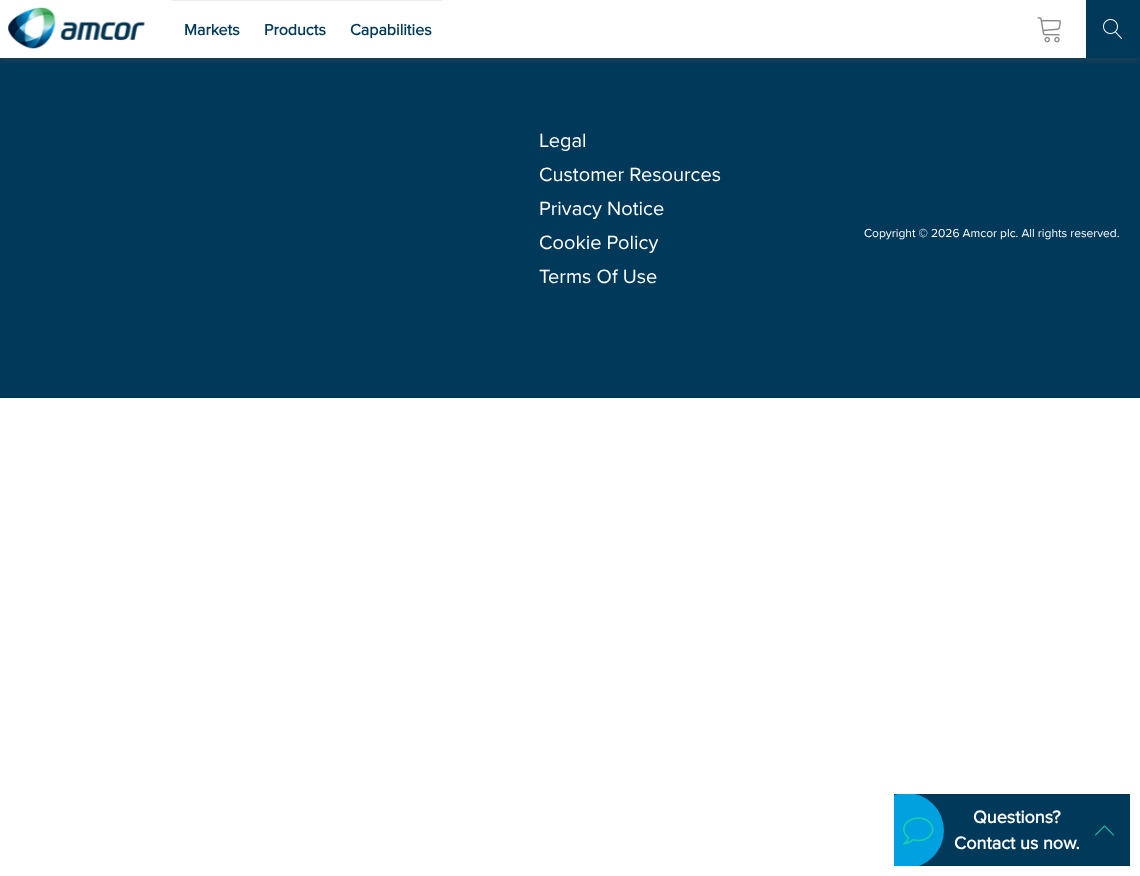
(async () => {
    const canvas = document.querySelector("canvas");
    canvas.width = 1140;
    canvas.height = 876;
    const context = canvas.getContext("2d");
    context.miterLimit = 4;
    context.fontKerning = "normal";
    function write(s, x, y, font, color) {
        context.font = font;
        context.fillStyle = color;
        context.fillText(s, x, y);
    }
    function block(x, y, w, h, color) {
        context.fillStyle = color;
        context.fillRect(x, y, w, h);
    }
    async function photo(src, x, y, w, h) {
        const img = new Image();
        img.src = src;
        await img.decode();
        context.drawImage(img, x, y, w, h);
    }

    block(0, 0, 1140, 876, "rgb(255, 255, 255)");
    block(0, 58, 1140, 340, "rgb(0, 57, 90)");
    context.save();
    context.beginPath();
    context.rect(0, 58, 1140, 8);
    context.clip();
    context.fillStyle = "rgba(75, 75, 77, 0.4)";
    context.filter = "blur(3px)";
    context.beginPath();
    context.rect(0, 3, 1140, 58);
    context.fill();
    context.filter = "none";
    context.restore();
    await photo("media/1.png", 8, 7, 137, 43);
    block(172, 0, 271, 1, "rgb(238, 238, 238)");
    write("Markets", 184, 35, "bold 16px Proxima Nova", "rgb(0, 57, 90)");
    write("Products", 264, 35, "bold 16px Proxima Nova", "rgb(0, 57, 90)");
    write("Capabilities", 350, 35, "bold 16px Proxima Nova", "rgb(0, 57, 90)");
    await photo("media/2.png", 1037, 17, 24, 26);
    block(1086, 0, 54, 58, "rgb(0, 57, 90)");
    await photo("media/3.png", 1103, 19, 19, 20);
    write("Legal", 539, 147, "20px Proxima Nova", "rgb(255, 255, 255)");
    write("Customer Resources", 539, 181, "20px Proxima Nova", "rgb(255, 255, 255)");
    write("Privacy Notice", 539, 215, "20px Proxima Nova", "rgb(255, 255, 255)");
    write("Cookie Policy", 539, 249, "20px Proxima Nova", "rgb(255, 255, 255)");
    write("Terms Of Use", 539, 283, "20px Proxima Nova", "rgb(255, 255, 255)");
    write("Copyright © 2026 Amcor plc. All rights reserved.", 864, 237, "12px Proxima Nova", "rgb(255, 255, 255)");
    block(894, 794, 236, 72, "rgb(0, 57, 90)");
    context.save();
    context.beginPath();
    context.rect(894, 794, 236, 72);
    context.clip();
    context.fillStyle = "rgb(0, 161, 222)";
    context.beginPath();
    context.arc(906.5, 830.5, 37.5, 0, Math.PI * 2);
    context.fill();
    context.restore();
    await photo("media/4.png", 903, 817, 31, 28);
    write("Questions?", 973, 823, "bold 18px Proxima Nova", "rgb(255, 255, 255)");
    write("Contact us now.", 954, 849, "bold 18px Proxima Nova", "rgb(255, 255, 255)");
    await photo("media/5.png", 1095, 825, 19, 11);
})();
